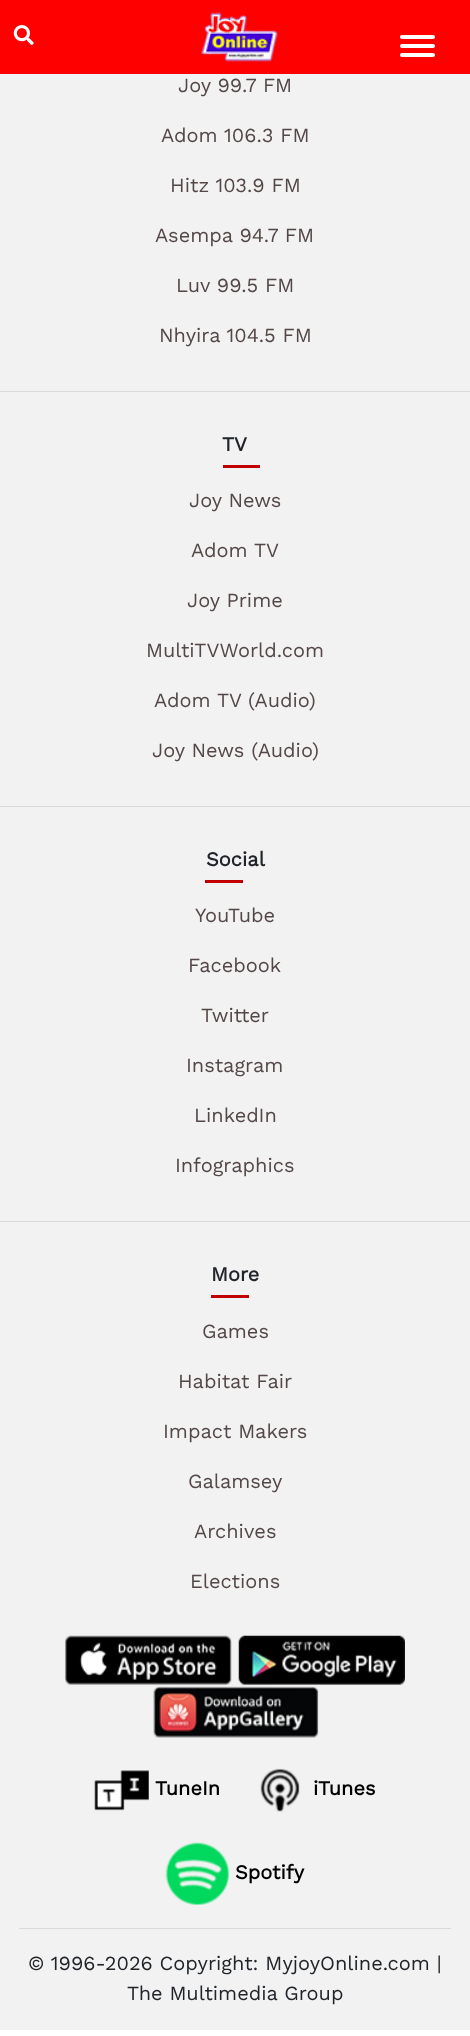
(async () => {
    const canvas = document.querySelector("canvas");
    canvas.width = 470;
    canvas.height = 2036;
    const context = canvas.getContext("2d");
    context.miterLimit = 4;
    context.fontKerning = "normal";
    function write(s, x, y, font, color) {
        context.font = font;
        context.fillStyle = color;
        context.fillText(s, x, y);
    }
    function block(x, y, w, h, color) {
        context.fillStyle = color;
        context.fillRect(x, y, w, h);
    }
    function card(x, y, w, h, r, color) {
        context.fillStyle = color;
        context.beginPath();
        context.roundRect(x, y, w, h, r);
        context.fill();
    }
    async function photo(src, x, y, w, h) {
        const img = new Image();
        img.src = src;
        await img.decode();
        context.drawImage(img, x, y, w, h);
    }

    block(0, 0, 470, 2036, "rgb(255, 255, 255)");
    block(0, 0, 470, 74, "rgb(255, 0, 0)");
    await photo("media/1.png", 13, 25, 21, 20);
    await photo("media/2.png", 201, 12, 77, 50);
    card(400, 35, 35, 4, 2, "rgb(255, 255, 255)");
    card(400, 44, 35, 4, 2, "rgb(255, 255, 255)");
    card(400, 53, 35, 4, 2, "rgb(255, 255, 255)");
    block(0, 74, 470, 1956, "rgb(242, 242, 242)");
    write("Joy 99.7 FM", 178, 92, "20px Work Sans", "rgb(83, 71, 71)");
    write("Adom 106.3 FM", 161, 142, "20px Work Sans", "rgb(83, 71, 71)");
    write("Hitz 103.9 FM", 170, 192, "20px Work Sans", "rgb(83, 71, 71)");
    write("Asempa 94.7 FM", 155, 242, "20px Work Sans", "rgb(83, 71, 71)");
    write("Luv 99.5 FM", 176, 292, "20px Work Sans", "rgb(83, 71, 71)");
    write("Nhyira 104.5 FM", 159, 342, "20px Work Sans", "rgb(83, 71, 71)");
    block(0, 391, 470, 1, "rgb(218, 218, 218)");
    write("TV", 222, 451, "bold 20px Work Sans", "rgb(33, 37, 41)");
    block(223, 465, 37, 3, "rgb(192, 0, 0)");
    write("Joy News", 189, 507, "20px Work Sans", "rgb(83, 71, 71)");
    write("Adom TV", 191, 557, "20px Work Sans", "rgb(83, 71, 71)");
    write("Joy Prime", 187, 607, "20px Work Sans", "rgb(83, 71, 71)");
    write("MultiTVWorld.com", 146, 657, "20px Work Sans", "rgb(83, 71, 71)");
    write("Adom TV (Audio)", 154, 707, "20px Work Sans", "rgb(83, 71, 71)");
    write("Joy News (Audio)", 152, 757, "20px Work Sans", "rgb(83, 71, 71)");
    block(0, 806, 470, 1, "rgb(218, 218, 218)");
    write("Social", 206, 866, "bold 20px Work Sans", "rgb(33, 37, 41)");
    block(205, 880, 38, 3, "rgb(192, 0, 0)");
    write("YouTube", 195, 922, "20px Work Sans", "rgb(83, 71, 71)");
    write("Facebook", 188, 972, "20px Work Sans", "rgb(83, 71, 71)");
    write("Twitter", 201, 1022, "20px Work Sans", "rgb(83, 71, 71)");
    write("Instagram", 186, 1072, "20px Work Sans", "rgb(83, 71, 71)");
    write("LinkedIn", 194, 1122, "20px Work Sans", "rgb(83, 71, 71)");
    write("Infographics", 175, 1172, "20px Work Sans", "rgb(83, 71, 71)");
    block(0, 1221, 470, 1, "rgb(218, 218, 218)");
    write("More", 211, 1281, "bold 20px Work Sans", "rgb(33, 37, 41)");
    block(211, 1295, 38, 3, "rgb(192, 0, 0)");
    write("Games", 202, 1338, "20px Work Sans", "rgb(83, 71, 71)");
    write("Habitat Fair", 178, 1388, "20px Work Sans", "rgb(83, 71, 71)");
    write("Impact Makers", 163, 1438, "20px Work Sans", "rgb(83, 71, 71)");
    write("Galamsey", 188, 1488, "20px Work Sans", "rgb(83, 71, 71)");
    write("Archives", 194, 1538, "20px Work Sans", "rgb(83, 71, 71)");
    write("Elections", 190, 1588, "20px Work Sans", "rgb(83, 71, 71)");
    await photo("media/3.png", 65, 1635, 167, 50);
    await photo("media/4.png", 238, 1635, 167, 50);
    await photo("media/5.png", 153, 1686, 166, 52);
    await photo("media/6.png", 94, 1770, 55, 41);
    write("TuneIn", 155, 1795, "bold 20px Work Sans", "rgb(0, 0, 0)");
    await photo("media/7.png", 260, 1768, 40, 44);
    write("iTunes", 313, 1795, "bold 20px Work Sans", "rgb(0, 0, 0)");
    await photo("media/8.png", 165, 1842, 64, 63);
    write("Spotify", 235, 1879, "bold 20px Work Sans", "rgb(0, 0, 0)");
    block(19, 1928, 432, 1, "rgb(218, 218, 218)");
    write("© 1996-2026 Copyright: MyjoyOnline.com |", 28, 1970, "20px Work Sans", "rgb(33, 37, 41)");
    write("The Multimedia Group", 127, 2000, "20px Work Sans", "rgb(33, 37, 41)");
})();
